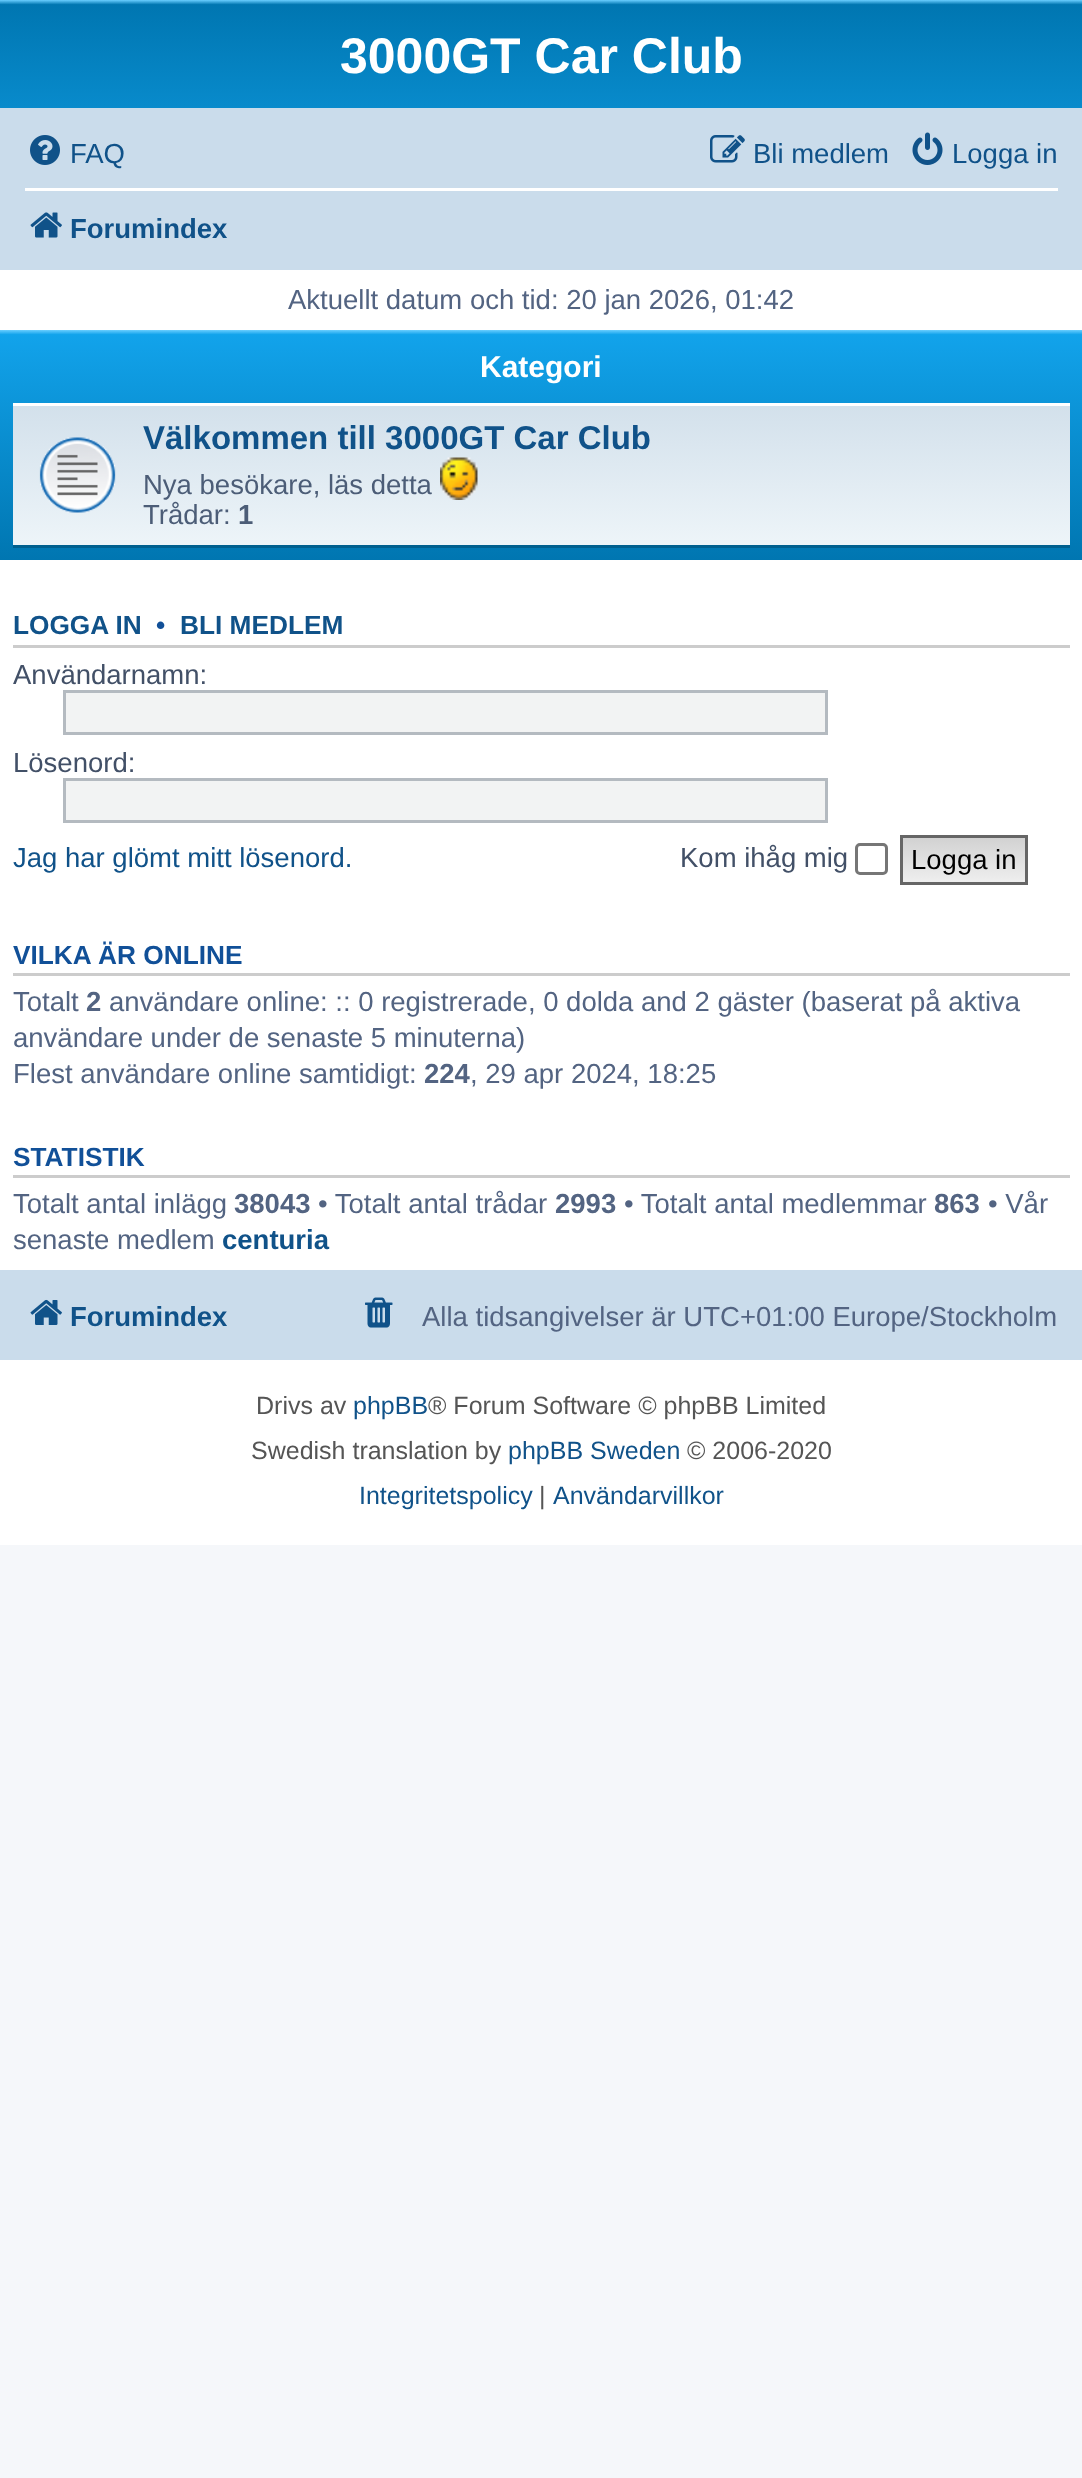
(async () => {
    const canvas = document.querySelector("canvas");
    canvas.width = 1082;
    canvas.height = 2478;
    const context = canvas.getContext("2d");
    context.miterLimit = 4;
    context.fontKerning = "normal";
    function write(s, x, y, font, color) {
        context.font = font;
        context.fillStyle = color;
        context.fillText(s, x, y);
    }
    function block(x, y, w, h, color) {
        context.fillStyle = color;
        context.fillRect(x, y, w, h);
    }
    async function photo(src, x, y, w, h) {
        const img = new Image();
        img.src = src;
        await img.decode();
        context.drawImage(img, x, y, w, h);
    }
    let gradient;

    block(0, 0, 1082, 2478, "rgb(245, 247, 250)");
    block(0, 270, 1082, 1275, "rgb(255, 255, 255)");
    gradient = context.createLinearGradient(541, 0, 541, 230);
    gradient.addColorStop(0, "rgb(106, 206, 255)");
    gradient.addColorStop(0.02, "rgb(0, 118, 177)");
    gradient.addColorStop(1, "rgb(18, 163, 235)");
    context.fillStyle = gradient;
    context.fillRect(0, 0, 1082, 108);
    write("3000GT Car Club", 340, 73, "bold 50px Liberation Sans", "rgb(255, 255, 255)");
    block(0, 108, 1082, 162, "rgb(202, 220, 235)");
    await photo("media/1.png", 30, 135, 30, 30);
    write("FAQ", 70, 163, "27.5px Liberation Sans", "rgb(16, 82, 137)");
    await photo("media/2.png", 710, 135, 35, 28);
    write("Bli medlem", 753, 163, "27.5px Liberation Sans", "rgb(16, 82, 137)");
    await photo("media/3.png", 912, 132, 31, 33);
    write("Logga in", 952, 163, "27.5px Liberation Sans", "rgb(16, 82, 137)");
    block(25, 188, 1033, 3, "rgb(255, 255, 255)");
    await photo("media/4.png", 30, 212, 32, 26);
    write("Forumindex", 70, 238, "bold 27.5px Liberation Sans", "rgb(16, 82, 137)");
    write("Aktuellt datum och tid: 20 jan 2026, 01:42", 288, 309, "27.5px Liberation Sans", "rgb(83, 100, 130)");
    gradient = context.createLinearGradient(541, 330, 541, 560);
    gradient.addColorStop(0, "rgb(106, 206, 255)");
    gradient.addColorStop(0.02, "rgb(18, 163, 235)");
    gradient.addColorStop(1, "rgb(0, 118, 177)");
    gradient.addColorStop(1, "rgb(0, 118, 177)");
    context.fillStyle = gradient;
    context.fillRect(0, 330, 1082, 230);
    write("Kategori", 480, 377, "bold 30px Liberation Sans", "rgb(255, 255, 255)");
    gradient = context.createLinearGradient(541, 402, 541, 548);
    gradient.addColorStop(0, "rgb(210, 224, 235)");
    gradient.addColorStop(1, "rgb(238, 245, 249)");
    context.fillStyle = gradient;
    context.fillRect(13, 406, 1057, 139);
    block(13, 403, 1057, 3, "rgb(255, 255, 255)");
    block(13, 545, 1057, 3, "rgb(0, 96, 143)");
    await photo("media/5.png", 39, 437, 77, 76);
    write("Välkommen till 3000GT Car Club", 143, 449, "bold 33px Liberation Sans", "rgb(16, 82, 137)");
    write("Nya besökare, läs detta", 143, 494, "27.5px Liberation Sans", "rgb(76, 93, 119)");
    await photo("media/6.png", 440, 457, 38, 43);
    write("Trådar:", 143, 524, "27.5px Liberation Sans", "rgb(76, 93, 119)");
    write("1", 238, 524, "bold 27.5px Liberation Sans", "rgb(76, 93, 119)");
    block(13, 645, 1057, 3, "rgb(204, 204, 204)");
    write("LOGGA IN", 13, 634, "bold 26.25px Liberation Sans", "rgb(16, 82, 137)");
    write("•", 156, 634, "bold 26.25px Liberation Sans", "rgb(17, 80, 152)");
    write("BLI MEDLEM", 180, 634, "bold 26.25px Liberation Sans", "rgb(16, 82, 137)");
    write("Användarnamn:", 13, 684, "27.5px Liberation Sans", "rgb(66, 80, 103)");
    context.fillStyle = "rgb(242, 243, 243)";
    context.beginPath();
    context.rect(64.5, 691.5, 762, 42);
    context.fill();
    context.strokeStyle = "rgb(180, 186, 192)";
    context.lineWidth = 3;
    context.stroke();
    write("Lösenord:", 13, 772, "27.5px Liberation Sans", "rgb(66, 80, 103)");
    context.fillStyle = "rgb(242, 243, 243)";
    context.beginPath();
    context.rect(64.5, 779.5, 762, 42);
    context.fill();
    context.stroke();
    write("Jag har glömt mitt lösenord.", 13, 867, "27.5px Liberation Sans", "rgb(16, 82, 137)");
    write("Kom ihåg mig", 680, 867, "27.5px Liberation Sans", "rgb(66, 80, 103)");
    context.beginPath();
    context.roundRect(856.5, 844.5, 30, 29, 3.5);
    context.strokeStyle = "rgb(118, 118, 118)";
    context.stroke();
    gradient = context.createLinearGradient(964, 838, 964, 883);
    gradient.addColorStop(0, "rgb(210, 210, 210)");
    gradient.addColorStop(1, "rgb(239, 239, 239)");
    context.fillStyle = gradient;
    context.fillRect(903, 838, 122, 44);
    context.strokeStyle = "rgb(102, 102, 102)";
    context.strokeRect(901.5, 836.5, 125, 47);
    write("Logga in", 911, 869, "27.5px Liberation Sans", "rgb(0, 0, 0)");
    block(13, 973, 1057, 3, "rgb(204, 204, 204)");
    write("VILKA ÄR ONLINE", 13, 964, "bold 26.25px Liberation Sans", "rgb(17, 80, 152)");
    write("Totalt", 13, 1011, "27.5px Liberation Sans", "rgb(83, 100, 130)");
    write("2", 86, 1011, "bold 27.5px Liberation Sans", "rgb(83, 100, 130)");
    write("användare online: :: 0 registrerade, 0 dolda and 2 gäster (baserat på aktiva", 109, 1011, "27.5px Liberation Sans", "rgb(83, 100, 130)");
    write("användare under de senaste 5 minuterna)", 13, 1047, "27.5px Liberation Sans", "rgb(83, 100, 130)");
    write("Flest användare online samtidigt:", 13, 1083, "27.5px Liberation Sans", "rgb(83, 100, 130)");
    write("224", 424, 1083, "bold 27.5px Liberation Sans", "rgb(83, 100, 130)");
    write(", 29 apr 2024, 18:25", 470, 1083, "27.5px Liberation Sans", "rgb(83, 100, 130)");
    block(13, 1175, 1057, 3, "rgb(204, 204, 204)");
    write("STATISTIK", 13, 1166, "bold 26.25px Liberation Sans", "rgb(17, 80, 152)");
    write("Totalt antal inlägg", 13, 1213, "27.5px Liberation Sans", "rgb(83, 100, 130)");
    write("38043", 234, 1213, "bold 27.5px Liberation Sans", "rgb(83, 100, 130)");
    write("• Totalt antal trådar", 318, 1213, "27.5px Liberation Sans", "rgb(83, 100, 130)");
    write("2993", 555, 1213, "bold 27.5px Liberation Sans", "rgb(83, 100, 130)");
    write("• Totalt antal medlemmar", 624, 1213, "27.5px Liberation Sans", "rgb(83, 100, 130)");
    write("863", 934, 1213, "bold 27.5px Liberation Sans", "rgb(83, 100, 130)");
    write("• Vår", 988, 1213, "27.5px Liberation Sans", "rgb(83, 100, 130)");
    write("senaste medlem", 13, 1249, "27.5px Liberation Sans", "rgb(83, 100, 130)");
    write("centuria", 222, 1249, "bold 27.5px Liberation Sans", "rgb(16, 82, 137)");
    block(0, 1270, 1082, 90, "rgb(202, 220, 235)");
    await photo("media/7.png", 30, 1299, 32, 26);
    write("Forumindex", 70, 1326, "bold 27.5px Liberation Sans", "rgb(16, 82, 137)");
    await photo("media/8.png", 365, 1297, 28, 31);
    write("Alla tidsangivelser är UTC+01:00 Europe/Stockholm", 422, 1326, "27.5px Liberation Sans", "rgb(83, 100, 130)");
    write("Drivs av", 256, 1414, "25px Liberation Sans", "rgb(85, 85, 85)");
    write("phpBB", 353, 1414, "25px Liberation Sans", "rgb(16, 82, 137)");
    write("® Forum Software © phpBB Limited", 428, 1414, "25px Liberation Sans", "rgb(85, 85, 85)");
    write("Swedish translation by", 251, 1459, "25px Liberation Sans", "rgb(85, 85, 85)");
    write("phpBB Sweden", 508, 1459, "25px Liberation Sans", "rgb(16, 82, 137)");
    write("© 2006-2020", 687, 1459, "25px Liberation Sans", "rgb(85, 85, 85)");
    write("Integritetspolicy", 359, 1504, "25px Liberation Sans", "rgb(16, 82, 137)");
    write("|", 539, 1504, "25px Liberation Sans", "rgb(85, 85, 85)");
    write("Användarvillkor", 553, 1504, "25px Liberation Sans", "rgb(16, 82, 137)");
})();
